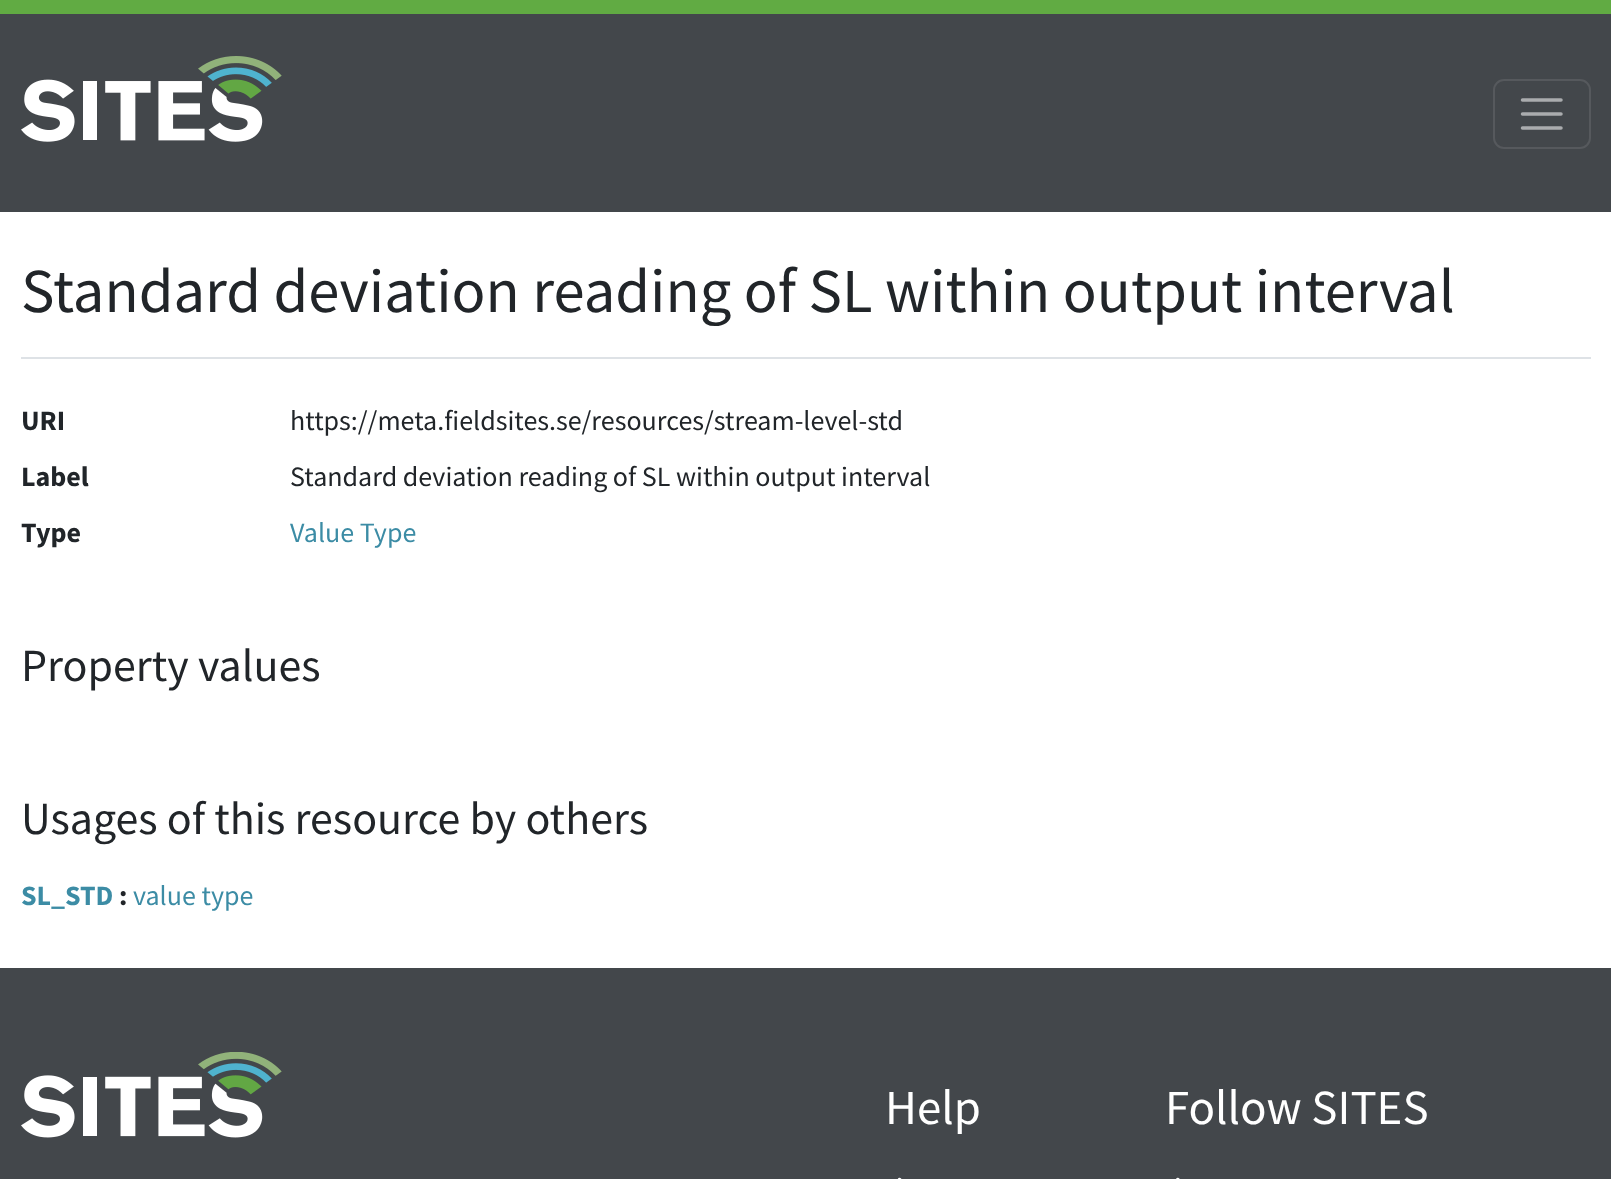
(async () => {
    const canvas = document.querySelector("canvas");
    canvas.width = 1611;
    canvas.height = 1179;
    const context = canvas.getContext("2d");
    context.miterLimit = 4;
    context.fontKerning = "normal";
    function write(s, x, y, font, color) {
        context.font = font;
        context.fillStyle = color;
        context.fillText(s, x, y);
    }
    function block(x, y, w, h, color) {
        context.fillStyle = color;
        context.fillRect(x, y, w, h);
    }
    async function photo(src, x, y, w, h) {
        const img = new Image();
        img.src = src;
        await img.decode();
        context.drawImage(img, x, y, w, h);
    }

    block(0, 0, 1611, 1179, "rgb(255, 255, 255)");
    block(0, 14, 1611, 198, "rgb(67, 71, 75)");
    block(0, 0, 1611, 14, "rgb(97, 171, 67)");
    await photo("media/1.png", 21, 56, 261, 86);
    context.beginPath();
    context.roundRect(1494, 80, 96, 68, 10);
    context.strokeStyle = "rgb(86, 89, 93)";
    context.lineWidth = 2;
    context.stroke();
    context.beginPath();
    context.moveTo(1522.5, 100);
    context.lineTo(1561, 100);
    context.moveTo(1522.5, 114);
    context.lineTo(1561, 114);
    context.moveTo(1522.5, 128);
    context.lineTo(1561, 128);
    context.strokeStyle = "rgb(170, 172, 174)";
    context.lineWidth = 3.5;
    context.lineCap = "round";
    context.stroke();
    block(21, 357, 1570, 2, "rgb(222, 226, 230)");
    write("Standard deviation reading of SL within output interval", 21, 312, "62.7px Source Sans Pro", "rgb(33, 37, 41)");
    write("URI", 21, 430, "bold 28px Source Sans Pro", "rgb(33, 37, 41)");
    write("https://meta.fieldsites.se/resources/stream-level-std", 290, 430, "28px Source Sans Pro", "rgb(33, 37, 41)");
    write("Label", 21, 486, "bold 28px Source Sans Pro", "rgb(33, 37, 41)");
    write("Standard deviation reading of SL within output interval", 290, 486, "28px Source Sans Pro", "rgb(33, 37, 41)");
    write("Type", 21, 542, "bold 28px Source Sans Pro", "rgb(33, 37, 41)");
    write("Value Type", 290, 542, "28px Source Sans Pro", "rgb(60, 140, 165)");
    write("Property values", 21, 681, "46px Source Sans Pro", "rgb(33, 37, 41)");
    write("Usages of this resource by others", 21, 834, "46px Source Sans Pro", "rgb(33, 37, 41)");
    write("SL_STD", 21, 905, "bold 28px Source Sans Pro", "rgb(60, 140, 165)");
    write(":", 119, 905, "bold 28px Source Sans Pro", "rgb(33, 37, 41)");
    write("value type", 133, 905, "28px Source Sans Pro", "rgb(60, 140, 165)");
    block(0, 968, 1611, 211, "rgb(67, 71, 75)");
    await photo("media/2.png", 21, 1052, 261, 86);
    write("Help", 885, 1124, "49px Source Sans Pro", "rgb(255, 255, 255)");
    await photo("media/3.png", 897, 1177, 5, 2);
    write("Follow SITES", 1165, 1124, "49px Source Sans Pro", "rgb(255, 255, 255)");
    await photo("media/4.png", 1176, 1177, 4, 2);
})();
